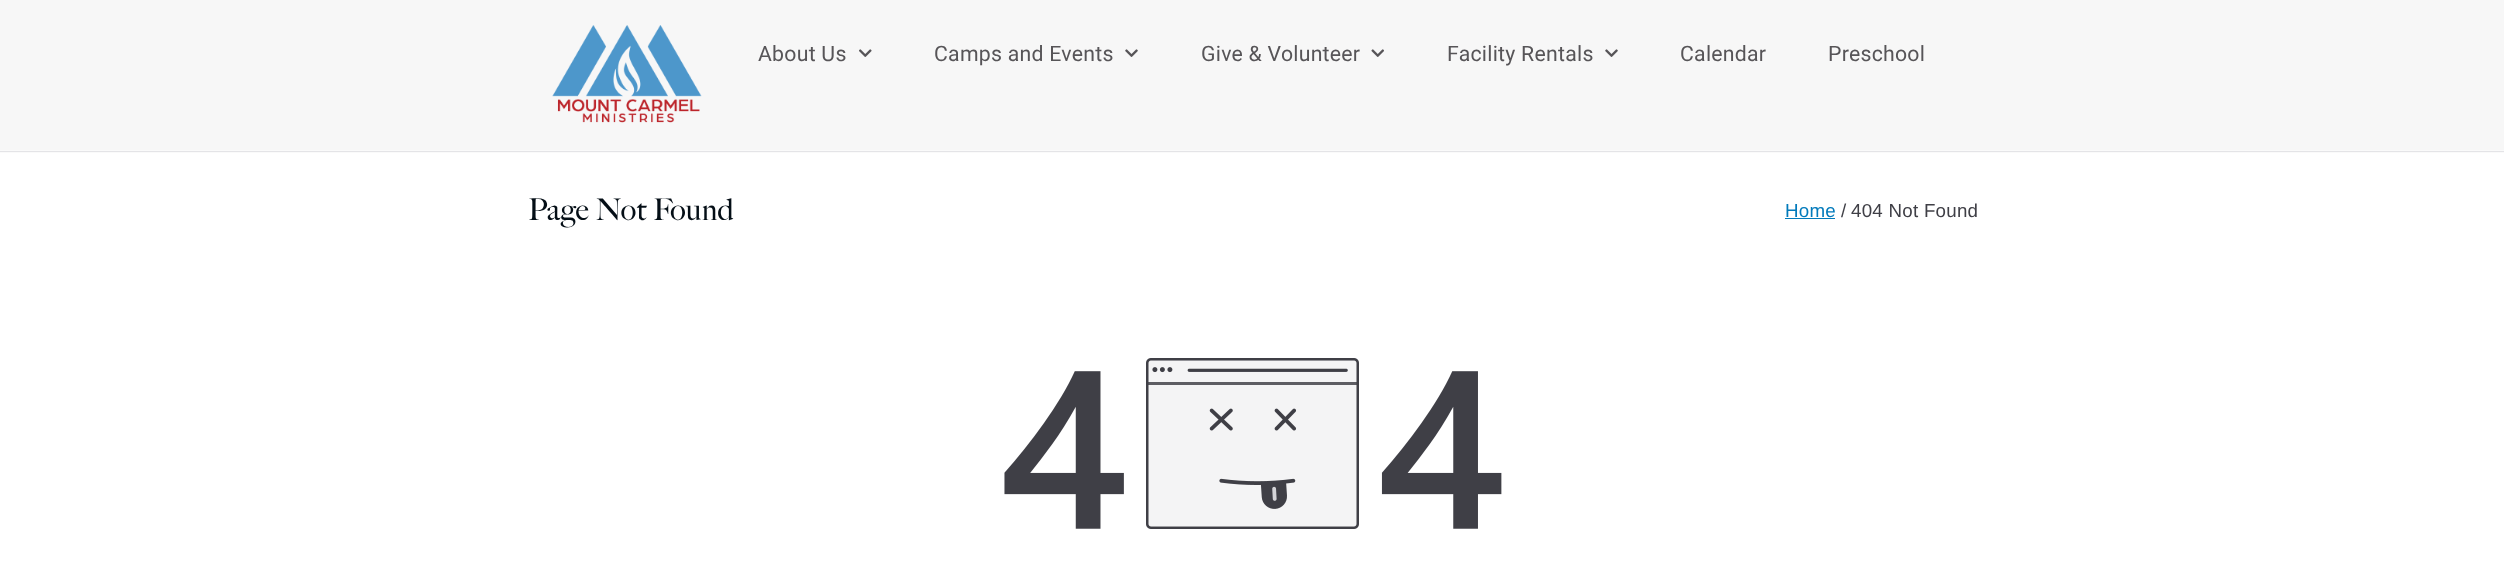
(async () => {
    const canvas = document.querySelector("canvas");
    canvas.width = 2504;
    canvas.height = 573;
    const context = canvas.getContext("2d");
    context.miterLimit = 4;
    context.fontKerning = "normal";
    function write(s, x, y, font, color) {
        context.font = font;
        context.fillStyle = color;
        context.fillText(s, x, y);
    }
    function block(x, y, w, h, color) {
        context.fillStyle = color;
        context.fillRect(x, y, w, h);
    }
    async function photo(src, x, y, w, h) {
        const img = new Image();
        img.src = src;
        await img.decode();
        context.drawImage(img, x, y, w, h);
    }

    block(0, 0, 2504, 573, "rgb(250, 250, 250)");
    block(0, 151, 2504, 1, "rgb(228, 228, 231)");
    block(0, 0, 2504, 150, "rgb(247, 247, 247)");
    await photo("media/1.png", 552, 25, 150, 98);
    context.letterSpacing = "0.25px";
    write("About Us", 758, 61, "21.25px Roboto", "rgb(87, 85, 88)");
    await photo("media/2.png", 859, 49, 13, 8);
    write("Camps and Events", 934, 61, "21.25px Roboto", "rgb(87, 85, 88)");
    await photo("media/3.png", 1125, 49, 13, 8);
    write("Give & Volunteer", 1201, 61, "21.25px Roboto", "rgb(87, 85, 88)");
    await photo("media/4.png", 1371, 49, 13, 8);
    write("Facility Rentals", 1447, 61, "21.25px Roboto", "rgb(87, 85, 88)");
    await photo("media/3.png", 1605, 49, 13, 8);
    write("Calendar", 1680, 61, "21.25px Roboto", "rgb(87, 85, 88)");
    write("Preschool", 1828, 61, "21.25px Roboto", "rgb(87, 85, 88)");
    block(0, 153, 2504, 420, "rgb(255, 255, 255)");
    write("Page Not Found", 528, 220, "30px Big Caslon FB", "rgb(4, 14, 22)");
    write("Home", 1785, 217, "18.75px Liberation Sans", "rgb(2, 122, 187)");
    block(1785, 218, 50, 1, "rgb(2, 122, 187)");
    write("/", 1841, 217, "18.75px Liberation Sans", "rgb(63, 63, 70)");
    write("404 Not Found", 1851, 217, "18.75px Liberation Sans", "rgb(63, 63, 70)");
    await photo("media/5.png", 1004, 358, 498, 171);
})();
